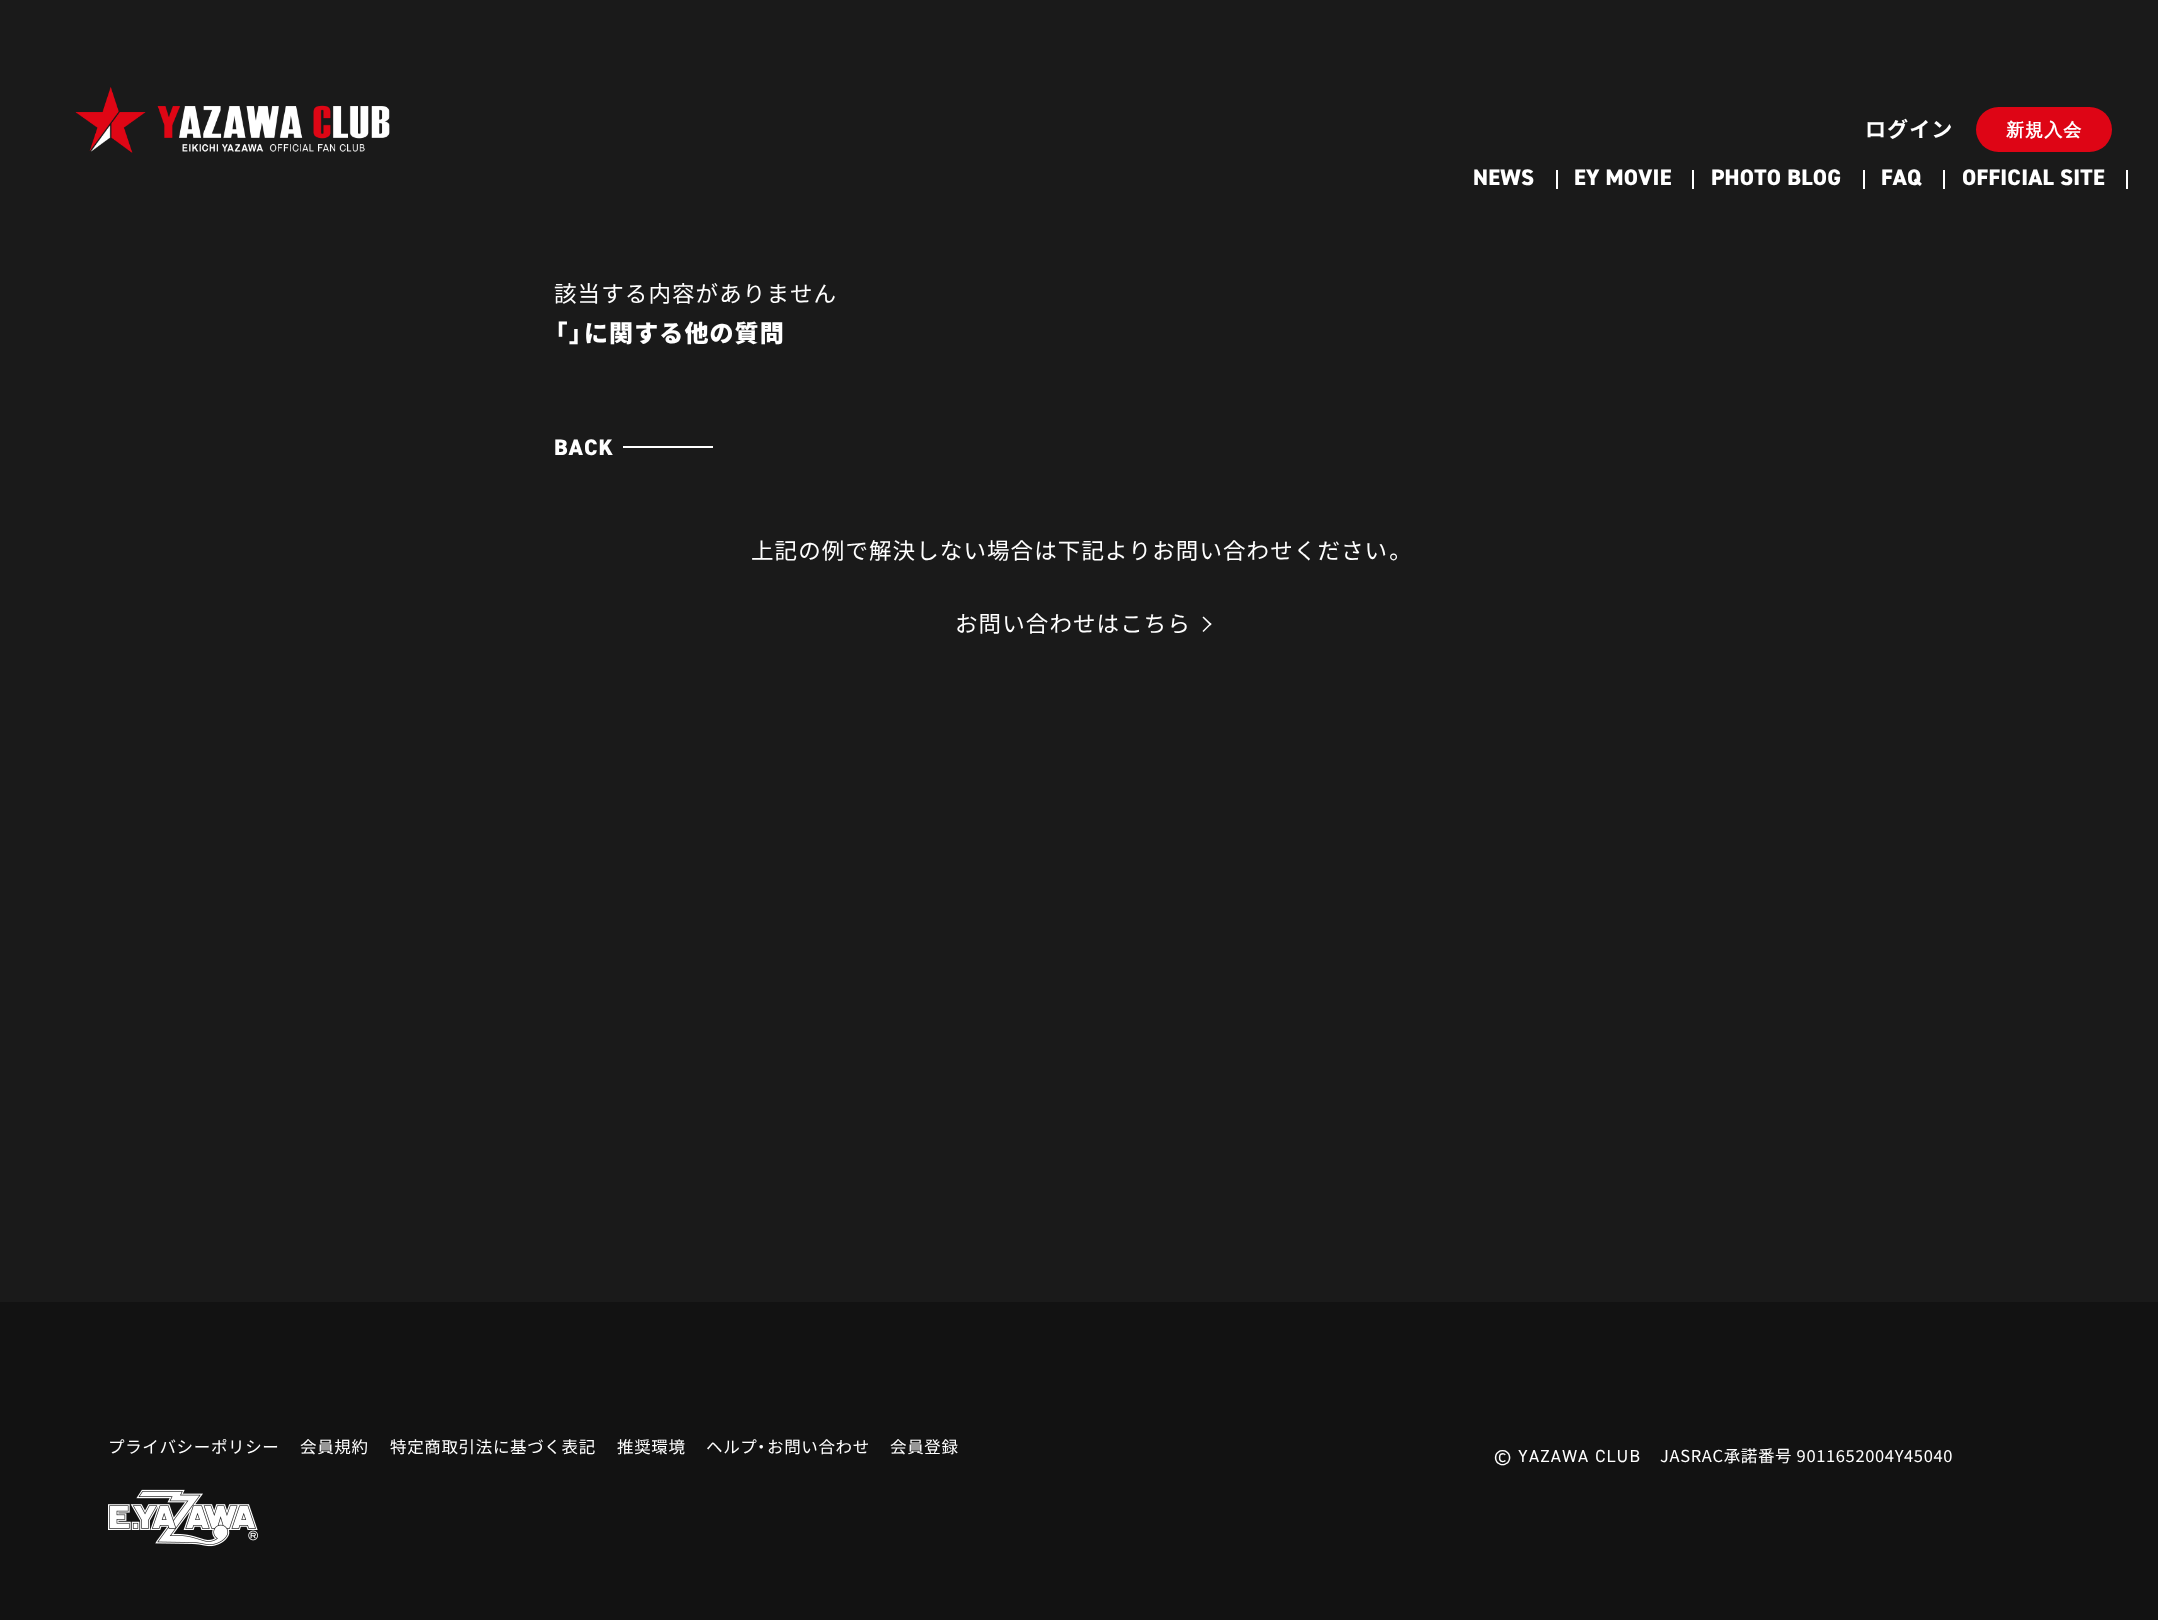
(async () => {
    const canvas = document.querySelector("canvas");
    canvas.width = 2158;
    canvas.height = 1620;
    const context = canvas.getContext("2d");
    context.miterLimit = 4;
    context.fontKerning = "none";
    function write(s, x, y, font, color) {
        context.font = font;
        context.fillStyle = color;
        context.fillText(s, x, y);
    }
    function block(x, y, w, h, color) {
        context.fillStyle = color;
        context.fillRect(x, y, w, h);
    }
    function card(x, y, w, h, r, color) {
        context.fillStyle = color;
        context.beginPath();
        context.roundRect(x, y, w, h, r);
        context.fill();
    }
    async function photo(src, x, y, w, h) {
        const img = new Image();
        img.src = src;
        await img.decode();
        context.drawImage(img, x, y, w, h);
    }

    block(0, 0, 2158, 1620, "rgb(26, 26, 26)");
    await photo("media/1.png", 75, 87, 315, 66);
    context.letterSpacing = "1.1px";
    write("ログイン", 1865, 137, "bold 21px Noto Sans JP", "rgb(255, 255, 255)");
    card(1976, 107, 136, 45, 22.5, "rgb(222, 5, 21)");
    write("新規入会", 2006, 136, "bold 18px WenQuanYi Zen Hei", "rgb(255, 255, 255)");
    context.letterSpacing = "0.25px";
    write("NEWS", 1473, 185, "800 22.5px 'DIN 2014'", "rgb(255, 255, 255)");
    block(1556, 170, 2, 19, "rgb(255, 255, 255)");
    write("EY MOVIE", 1574, 185, "800 22.5px 'DIN 2014'", "rgb(255, 255, 255)");
    block(1692, 170, 2, 19, "rgb(255, 255, 255)");
    write("PHOTO BLOG", 1711, 185, "800 22.5px 'DIN 2014'", "rgb(255, 255, 255)");
    block(1863, 170, 2, 19, "rgb(255, 255, 255)");
    write("FAQ", 1881, 185, "800 22.5px 'DIN 2014'", "rgb(255, 255, 255)");
    block(1943, 170, 2, 19, "rgb(255, 255, 255)");
    write("OFFICIAL SITE", 1962, 185, "800 22.5px 'DIN 2014'", "rgb(255, 255, 255)");
    block(2126, 170, 2, 19, "rgb(255, 255, 255)");
    context.letterSpacing = "1.1px";
    write("該当する内容がありません", 554, 302, "22.5px Noto Sans JP", "rgb(255, 255, 255)");
    write("「」", 554, 342, "900 24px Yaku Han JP", "rgb(255, 255, 255)");
    write("に関する他の質問", 584, 342, "900 24px Noto Sans JP", "rgb(255, 255, 255)");
    write("BACK", 554, 455, "800 22.5px 'DIN 2014'", "rgb(255, 255, 255)");
    block(623, 446, 90, 2, "rgb(255, 255, 255)");
    write("上記の例で解決しない場合は下記よりお問い合わせください", 751, 559, "22.5px Noto Sans JP", "rgb(255, 255, 255)");
    write("。", 1389, 559, "22.5px Yaku Han JP", "rgb(255, 255, 255)");
    write("お問い合わせはこちら", 955, 632, "22.5px Noto Sans JP", "rgb(255, 255, 255)");
    context.beginPath();
    context.moveTo(1210.5, 625.5);
    context.lineTo(1202.5, 617.5);
    context.lineTo(1203.5, 616.5);
    context.lineTo(1211.5, 624);
    context.closePath();
    context.fill();
    context.beginPath();
    context.moveTo(1203.5, 632);
    context.lineTo(1202.5, 631);
    context.lineTo(1210.5, 623);
    context.lineTo(1211.5, 624);
    context.closePath();
    context.fill();
    block(0, 1302, 2158, 318, "rgb(18, 18, 18)");
    context.letterSpacing = "0.65px";
    write("プライバシーポリシー", 108, 1453, "16.5px Noto Sans JP", "rgb(255, 255, 255)");
    write("会員規約", 300, 1453, "16.5px Noto Sans JP", "rgb(255, 255, 255)");
    write("特定商取引法に基づく表記", 390, 1453, "16.5px Noto Sans JP", "rgb(255, 255, 255)");
    write("推奨環境", 617, 1453, "16.5px Noto Sans JP", "rgb(255, 255, 255)");
    write("ヘルプ", 706, 1453, "16.5px Noto Sans JP", "rgb(255, 255, 255)");
    write("・", 757, 1453, "16.5px Yaku Han JP", "rgb(255, 255, 255)");
    write("お問い合わせ", 767, 1453, "16.5px Noto Sans JP", "rgb(255, 255, 255)");
    write("会員登録", 890, 1453, "16.5px Noto Sans JP", "rgb(255, 255, 255)");
    await photo("media/2.png", 108, 1489, 150, 58);
    context.letterSpacing = "1.25px";
    write("© YAZAWA CLUB", 1494, 1462, "17.5px 'DIN 2014'", "rgb(255, 255, 255)");
    context.letterSpacing = "0.65px";
    write("JASRAC承諾番号 9011652004Y45040", 1660, 1462, "16.5px Noto Sans JP", "rgb(255, 255, 255)");
})();
